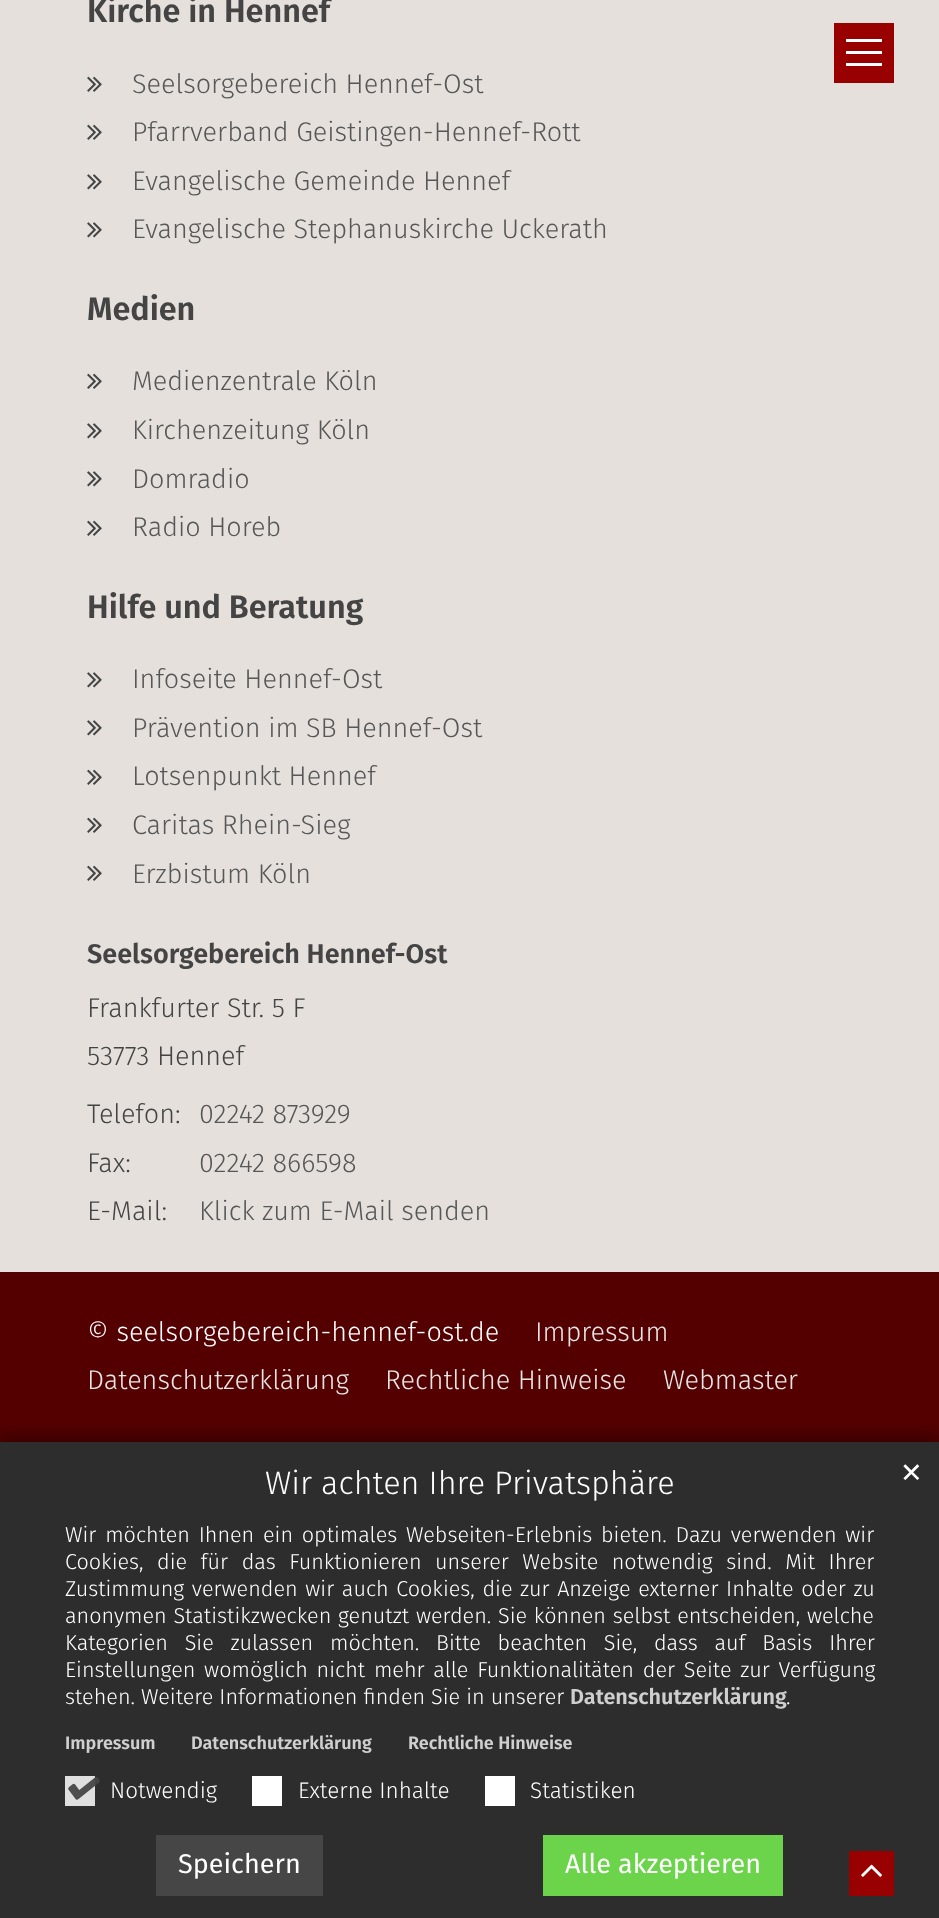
(async () => {
    const canvas = document.querySelector("canvas");
    canvas.width = 939;
    canvas.height = 1918;
    const context = canvas.getContext("2d");
    context.miterLimit = 4;
    context.fontKerning = "normal";
    function write(s, x, y, font, color) {
        context.font = font;
        context.fillStyle = color;
        context.fillText(s, x, y);
    }
    function block(x, y, w, h, color) {
        context.fillStyle = color;
        context.fillRect(x, y, w, h);
    }
    async function photo(src, x, y, w, h) {
        const img = new Image();
        img.src = src;
        await img.decode();
        context.drawImage(img, x, y, w, h);
    }

    block(0, 0, 939, 1918, "rgb(229, 224, 219)");
    write("Kirche in Hennef", 87, 22, "600 32.4px Fira Sans", "rgb(68, 68, 68)");
    await photo("media/1.png", 87, 76, 15, 16);
    write("Seelsorgebereich Hennef-Ost", 132, 93, "300 27px Fira Sans", "rgb(87, 87, 87)");
    await photo("media/1.png", 87, 124, 15, 16);
    write("Pfarrverband Geistingen-Hennef-Rott", 132, 141, "300 27px Fira Sans", "rgb(87, 87, 87)");
    await photo("media/2.png", 87, 174, 15, 16);
    write("Evangelische Gemeinde Hennef", 132, 190, "300 27px Fira Sans", "rgb(87, 87, 87)");
    await photo("media/2.png", 87, 222, 15, 16);
    write("Evangelische Stephanuskirche Uckerath", 132, 238, "300 27px Fira Sans", "rgb(87, 87, 87)");
    write("Medien", 87, 320, "600 32.4px Fira Sans", "rgb(68, 68, 68)");
    await photo("media/1.png", 87, 373, 15, 16);
    write("Medienzentrale Köln", 132, 390, "300 27px Fira Sans", "rgb(87, 87, 87)");
    await photo("media/2.png", 87, 423, 15, 16);
    write("Kirchenzeitung Köln", 132, 439, "300 27px Fira Sans", "rgb(87, 87, 87)");
    await photo("media/2.png", 87, 471, 15, 16);
    write("Domradio", 132, 488, "300 27px Fira Sans", "rgb(87, 87, 87)");
    await photo("media/1.png", 87, 520, 15, 16);
    write("Radio Horeb", 132, 536, "300 27px Fira Sans", "rgb(87, 87, 87)");
    write("Hilfe und Beratung", 87, 618, "600 32.4px Fira Sans", "rgb(68, 68, 68)");
    await photo("media/2.png", 87, 672, 15, 16);
    write("Infoseite Hennef-Ost", 132, 688, "300 27px Fira Sans", "rgb(87, 87, 87)");
    await photo("media/2.png", 87, 720, 15, 16);
    write("Prävention im SB Hennef-Ost", 132, 737, "300 27px Fira Sans", "rgb(87, 87, 87)");
    await photo("media/1.png", 87, 769, 15, 16);
    write("Lotsenpunkt Hennef", 132, 785, "300 27px Fira Sans", "rgb(87, 87, 87)");
    await photo("media/1.png", 87, 817, 15, 16);
    write("Caritas Rhein-Sieg", 132, 834, "300 27px Fira Sans", "rgb(87, 87, 87)");
    await photo("media/1.png", 87, 865, 15, 16);
    write("Erzbistum Köln", 132, 883, "300 27px Fira Sans", "rgb(87, 87, 87)");
    write("Seelsorgebereich Hennef-Ost", 87, 963, "600 27px Fira Sans", "rgb(68, 68, 68)");
    write("Frankfurter Str. 5 F", 87, 1017, "300 27px Fira Sans", "rgb(68, 68, 68)");
    write("53773 Hennef", 87, 1065, "300 27px Fira Sans", "rgb(68, 68, 68)");
    write("Telefon:", 87, 1123, "300 27px Fira Sans", "rgb(68, 68, 68)");
    write("02242 873929", 199, 1123, "300 27px Fira Sans", "rgb(87, 87, 87)");
    write("Fax:", 87, 1172, "300 27px Fira Sans", "rgb(68, 68, 68)");
    write("02242 866598", 199, 1172, "300 27px Fira Sans", "rgb(87, 87, 87)");
    write("E-Mail:", 87, 1220, "300 27px Fira Sans", "rgb(68, 68, 68)");
    write("Klick zum E-Mail senden", 199, 1220, "300 27px Fira Sans", "rgb(87, 87, 87)");
    block(0, 1272, 939, 170, "rgb(85, 0, 0)");
    write("© seelsorgebereich-hennef-ost.de", 87, 1341, "300 27px Fira Sans", "rgb(255, 255, 255)");
    write("Impressum", 535, 1341, "300 27px Fira Sans", "rgb(230, 230, 230)");
    write("Datenschutzerklärung", 87, 1389, "300 27px Fira Sans", "rgb(230, 230, 230)");
    write("Rechtliche Hinweise", 385, 1389, "300 27px Fira Sans", "rgb(230, 230, 230)");
    write("Webmaster", 663, 1389, "300 27px Fira Sans", "rgb(230, 230, 230)");
    block(834, 23, 60, 60, "rgb(153, 0, 0)");
    block(846, 51, 36, 3, "rgb(255, 255, 255)");
    block(846, 39, 36, 3, "rgb(255, 255, 255)");
    block(846, 63, 36, 3, "rgb(255, 255, 255)");
    context.fillStyle = "rgba(4, 0, 0, 0.3)";
    context.filter = "blur(7.5px)";
    context.beginPath();
    context.rect(-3, 1434, 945, 483);
    context.fill();
    context.filter = "none";
    block(0, 1442, 939, 476, "rgb(45, 45, 45)");
    write("Wir achten Ihre Privatsphäre", 265, 1494, "300 32.4px Fira Sans", "rgb(255, 255, 255)");
    write("✕", 900, 1482, "27px DejaVu Sans", "rgb(255, 255, 255)");
    context.wordSpacing = "2.75px";
    write("Wir möchten Ihnen ein optimales Webseiten-Erlebnis bieten. Dazu verwenden wir", 65, 1542, "300 21.6px Fira Sans", "rgb(255, 255, 255)");
    context.wordSpacing = "7.5px";
    write("Cookies, die für das Funktionieren unserer Website notwendig sind. Mit Ihrer", 65, 1569, "300 21.6px Fira Sans", "rgb(255, 255, 255)");
    context.wordSpacing = "1.6px";
    write("Zustimmung verwenden wir auch Cookies, die zur Anzeige externer Inhalte oder zu", 65, 1596, "300 21.6px Fira Sans", "rgb(255, 255, 255)");
    context.wordSpacing = "0.75px";
    write("anonymen Statistikzwecken genutzt werden. Sie können selbst entscheiden, welche", 65, 1623, "300 21.6px Fira Sans", "rgb(255, 255, 255)");
    context.wordSpacing = "10.75px";
    write("Kategorien Sie zulassen möchten. Bitte beachten Sie, dass auf Basis Ihrer", 65, 1650, "300 21.6px Fira Sans", "rgb(255, 255, 255)");
    context.wordSpacing = "2.75px";
    write("Einstellungen womöglich nicht mehr alle Funktionalitäten der Seite zur Verfügung", 65, 1677, "300 21.6px Fira Sans", "rgb(255, 255, 255)");
    context.wordSpacing = "0px";
    write("stehen. Weitere Informationen finden Sie in unserer", 65, 1704, "300 21.6px Fira Sans", "rgb(255, 255, 255)");
    write("Datenschutzerklärung", 570, 1704, "600 21.6px Fira Sans", "rgb(207, 207, 207)");
    write(".", 786, 1704, "300 21.6px Fira Sans", "rgb(255, 255, 255)");
    write("Impressum", 65, 1749, "600 18px Fira Sans", "rgb(207, 207, 207)");
    write("Datenschutzerklärung", 191, 1749, "600 18px Fira Sans", "rgb(207, 207, 207)");
    write("Rechtliche Hinweise", 408, 1749, "600 18px Fira Sans", "rgb(207, 207, 207)");
    block(65, 1776, 30, 30, "rgb(223, 223, 223)");
    await photo("media/3.png", 68, 1777, 32, 23);
    write("Notwendig", 110, 1798, "300 22.5px Fira Sans", "rgb(255, 255, 255)");
    block(252, 1776, 30, 30, "rgb(255, 255, 255)");
    write("Externe Inhalte", 298, 1798, "300 22.5px Fira Sans", "rgb(255, 255, 255)");
    block(485, 1776, 30, 30, "rgb(255, 255, 255)");
    write("Statistiken", 530, 1798, "300 22.5px Fira Sans", "rgb(255, 255, 255)");
    block(156, 1835, 167, 61, "rgb(70, 70, 70)");
    write("Speichern", 178, 1873, "27px Fira Sans", "rgb(255, 255, 255)");
    block(543, 1835, 240, 61, "rgb(108, 212, 75)");
    write("Alle akzeptieren", 565, 1873, "27px Fira Sans", "rgb(255, 255, 255)");
    block(849, 1851, 45, 45, "rgb(153, 0, 0)");
    await photo("media/4.png", 861, 1864, 21, 13);
})();
